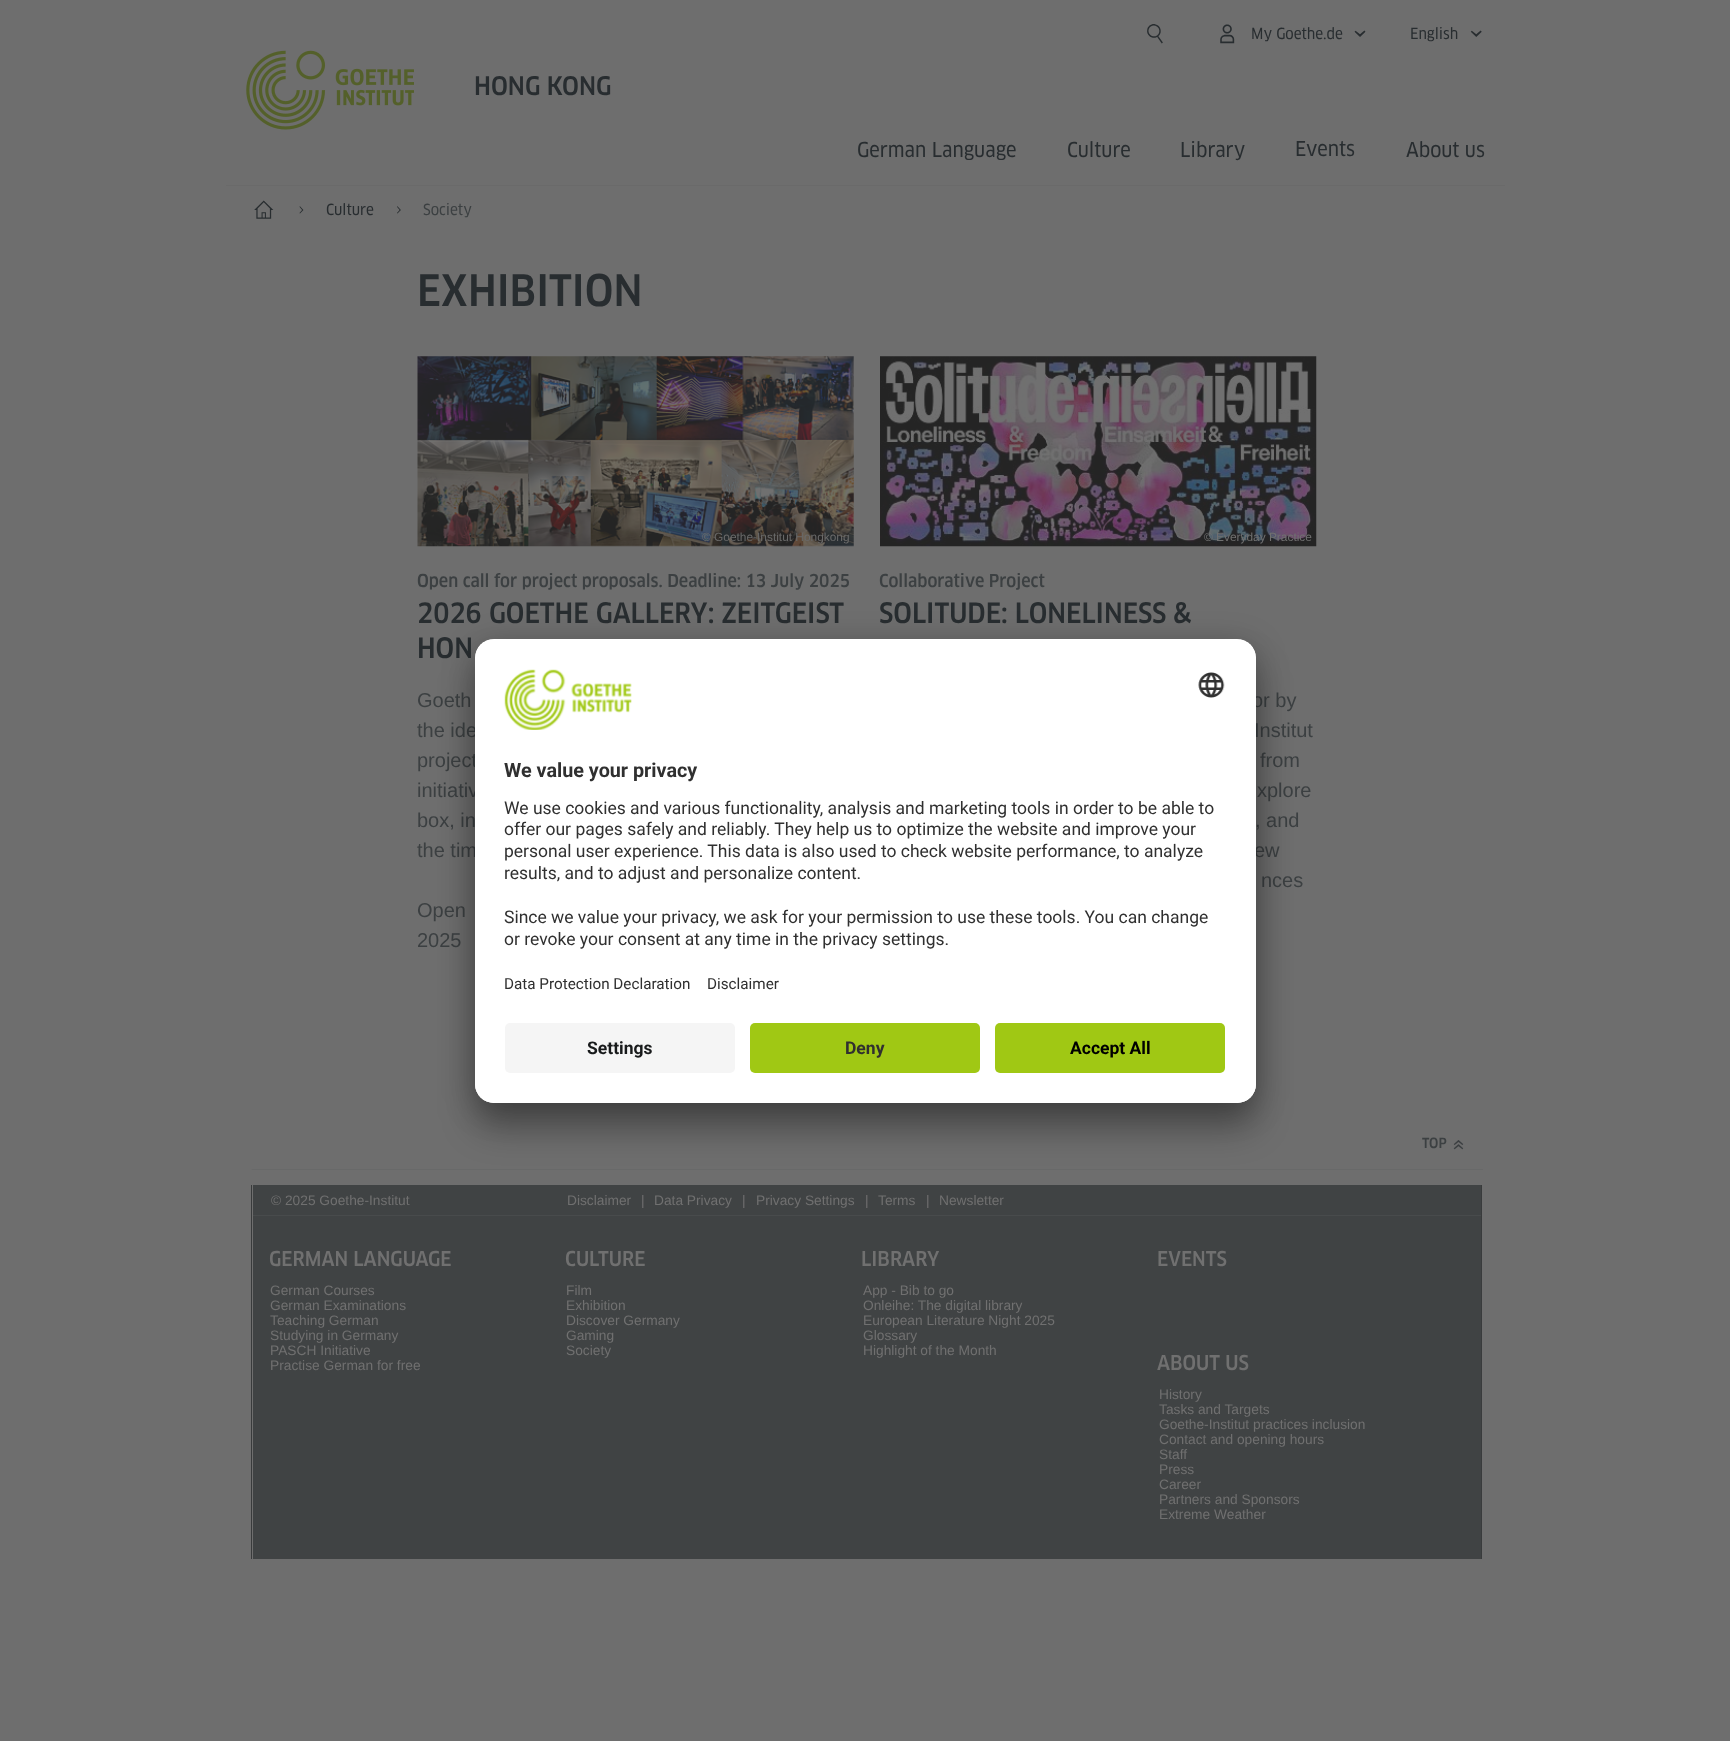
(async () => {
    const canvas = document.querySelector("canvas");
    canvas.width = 1730;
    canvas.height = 1741;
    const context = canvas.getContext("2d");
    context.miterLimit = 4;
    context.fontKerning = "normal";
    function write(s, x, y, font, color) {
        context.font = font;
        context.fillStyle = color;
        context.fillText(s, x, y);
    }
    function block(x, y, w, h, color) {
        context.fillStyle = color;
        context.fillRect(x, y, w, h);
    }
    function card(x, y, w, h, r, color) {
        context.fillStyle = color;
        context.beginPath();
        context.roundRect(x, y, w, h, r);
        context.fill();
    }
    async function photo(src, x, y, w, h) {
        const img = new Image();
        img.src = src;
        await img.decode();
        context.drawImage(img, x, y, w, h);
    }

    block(0, 0, 1730, 1741, "rgb(110, 110, 110)");
    await photo("media/1.png", 246, 50, 168, 80);
    write("HONG KONG", 474, 95, "500 25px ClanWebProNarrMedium", "rgb(40, 45, 48)");
    await photo("media/2.png", 1147, 24, 16, 20);
    await photo("media/3.png", 1220, 24, 15, 20);
    write("My Goethe.de", 1251, 39, "500 15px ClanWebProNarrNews", "rgb(40, 45, 48)");
    await photo("media/4.png", 1354, 30, 12, 7);
    write("English", 1410, 39, "500 15px ClanWebProNarrNews", "rgb(40, 45, 48)");
    await photo("media/5.png", 1470, 30, 12, 7);
    write("German Language", 857, 157, "500 20px ClanWebProNarrNews", "rgb(40, 45, 48)");
    write("Culture", 1067, 157, "500 20px ClanWebProNarrNews", "rgb(40, 45, 48)");
    write("Library", 1180, 157, "500 20px ClanWebProNarrNews", "rgb(40, 45, 48)");
    write("Events", 1295, 156, "500 20px ClanWebProNarrNews", "rgb(40, 45, 48)");
    write("About us", 1406, 157, "500 20px ClanWebProNarrNews", "rgb(40, 45, 48)");
    block(226, 185, 1279, 1, "rgb(106, 106, 106)");
    await photo("media/6.png", 254, 200, 20, 19);
    await photo("media/7.png", 299, 206, 5, 8);
    write("Culture", 326, 215, "500 15px ClanWebProNarrNews", "rgb(40, 45, 48)");
    await photo("media/8.png", 397, 206, 4, 8);
    write("Society", 423, 215, "500 15px ClanWebProNarrNews", "rgb(60, 64, 66)");
    block(251, 1169, 1232, 1, "rgb(104, 105, 105)");
    block(251, 1169, 1, 1, "rgb(108, 108, 108)");
    write("EXHIBITION", 417, 306, "500 42.5px ClanWebProNarrMedium", "rgb(40, 45, 48)");
    await photo("media/9.png", 417, 356, 437, 191);
    write("© Goethe-Institut Hongkong", 702, 541, "11.9px Liberation Sans", "rgb(106, 106, 106)");
    write("Open call for project proposals. Deadline: 13 July 2025", 417, 587, "500 17.5px ClanWebProNarrMedium", "rgb(60, 64, 66)");
    write("2026 GOETHE GALLERY: ZEITGEIST", 417, 623, "500 27.5px ClanWebProNarrMedium", "rgb(40, 45, 48)");
    write("HON", 417, 658, "500 27.5px ClanWebProNarrMedium", "rgb(40, 45, 48)");
    write("Goeth", 417, 707, "20px Liberation Sans", "rgb(60, 64, 66)");
    write("the ide", 417, 737, "20px Liberation Sans", "rgb(60, 64, 66)");
    write("project", 417, 767, "20px Liberation Sans", "rgb(60, 64, 66)");
    write("initiativ", 417, 797, "20px Liberation Sans", "rgb(60, 64, 66)");
    write("box, in", 417, 827, "20px Liberation Sans", "rgb(60, 64, 66)");
    write("the tim", 417, 857, "20px Liberation Sans", "rgb(60, 64, 66)");
    write("Open", 417, 917, "20px Liberation Sans", "rgb(60, 64, 66)");
    write("2025", 417, 947, "20px Liberation Sans", "rgb(60, 64, 66)");
    await photo("media/10.png", 880, 356, 437, 191);
    write("© Everyday Practice", 1204, 541, "11.9px Liberation Sans", "rgb(112, 112, 112)");
    write("Collaborative Project", 879, 587, "500 17.5px ClanWebProNarrMedium", "rgb(60, 64, 66)");
    write("SOLITUDE: LONELINESS &", 879, 623, "500 27.5px ClanWebProNarrMedium", "rgb(40, 45, 48)");
    write("or by", 1252, 707, "20px Liberation Sans", "rgb(60, 64, 66)");
    write("Institut", 1254, 737, "20px Liberation Sans", "rgb(60, 64, 66)");
    write("from", 1260, 767, "20px Liberation Sans", "rgb(60, 64, 66)");
    write("xplore", 1257, 797, "20px Liberation Sans", "rgb(60, 64, 66)");
    write(", and", 1255, 827, "20px Liberation Sans", "rgb(60, 64, 66)");
    write("ew", 1254, 857, "20px Liberation Sans", "rgb(60, 64, 66)");
    write("nces", 1261, 887, "20px Liberation Sans", "rgb(60, 64, 66)");
    write("TOP", 1422, 1148, "500 13.75px ClanWebProNarrMedium", "rgb(60, 64, 66)");
    await photo("media/11.png", 1453, 1140, 11, 10);
    block(1481, 1185, 1, 374, "rgb(57, 59, 60)");
    block(251, 1185, 1, 374, "rgb(57, 59, 60)");
    block(253, 1185, 1228, 374, "rgb(64, 67, 68)");
    block(253, 1215, 1228, 1, "rgb(72, 75, 76)");
    write("© 2025 Goethe-Institut", 271, 1205, "13.75px Liberation Sans", "rgb(112, 112, 112)");
    write("Disclaimer", 567, 1205, "13.75px Liberation Sans", "rgb(112, 112, 112)");
    write("|", 641, 1205, "13.75px Liberation Sans", "rgb(112, 112, 112)");
    write("Data Privacy", 654, 1205, "13.75px Liberation Sans", "rgb(112, 112, 112)");
    write("|", 742, 1205, "13.75px Liberation Sans", "rgb(112, 112, 112)");
    write("Privacy Settings", 756, 1205, "13.75px Liberation Sans", "rgb(112, 112, 112)");
    write("|", 865, 1205, "13.75px Liberation Sans", "rgb(112, 112, 112)");
    write("Terms", 878, 1205, "13.75px Liberation Sans", "rgb(112, 112, 112)");
    write("|", 926, 1205, "13.75px Liberation Sans", "rgb(112, 112, 112)");
    write("Newsletter", 939, 1205, "13.75px Liberation Sans", "rgb(112, 112, 112)");
    write("GERMAN LANGUAGE", 269, 1266, "500 20px ClanWebProNarrMedium", "rgb(112, 112, 112)");
    write("German Courses", 270, 1295, "13.75px Liberation Sans", "rgb(112, 112, 112)");
    write("German Examinations", 270, 1310, "13.75px Liberation Sans", "rgb(112, 112, 112)");
    write("Teaching German", 270, 1325, "13.75px Liberation Sans", "rgb(112, 112, 112)");
    write("Studying in Germany", 270, 1340, "13.75px Liberation Sans", "rgb(112, 112, 112)");
    write("PASCH Initiative", 270, 1355, "13.75px Liberation Sans", "rgb(112, 112, 112)");
    write("Practise German for free", 270, 1370, "13.75px Liberation Sans", "rgb(112, 112, 112)");
    write("CULTURE", 565, 1266, "500 20px ClanWebProNarrMedium", "rgb(112, 112, 112)");
    write("Film", 566, 1295, "13.75px Liberation Sans", "rgb(112, 112, 112)");
    write("Exhibition", 566, 1310, "13.75px Liberation Sans", "rgb(112, 112, 112)");
    write("Discover Germany", 566, 1325, "13.75px Liberation Sans", "rgb(112, 112, 112)");
    write("Gaming", 566, 1340, "13.75px Liberation Sans", "rgb(112, 112, 112)");
    write("Society", 566, 1355, "13.75px Liberation Sans", "rgb(112, 112, 112)");
    write("LIBRARY", 861, 1266, "500 20px ClanWebProNarrMedium", "rgb(112, 112, 112)");
    write("App - Bib to go", 863, 1295, "13.75px Liberation Sans", "rgb(112, 112, 112)");
    write("Onleihe: The digital library", 863, 1310, "13.75px Liberation Sans", "rgb(112, 112, 112)");
    write("European Literature Night 2025", 863, 1325, "13.75px Liberation Sans", "rgb(112, 112, 112)");
    write("Glossary", 863, 1340, "13.75px Liberation Sans", "rgb(112, 112, 112)");
    write("Highlight of the Month", 863, 1355, "13.75px Liberation Sans", "rgb(112, 112, 112)");
    write("EVENTS", 1157, 1266, "500 20px ClanWebProNarrMedium", "rgb(112, 112, 112)");
    write("ABOUT US", 1157, 1370, "500 20px ClanWebProNarrMedium", "rgb(112, 112, 112)");
    write("History", 1159, 1399, "13.75px Liberation Sans", "rgb(112, 112, 112)");
    write("Tasks and Targets", 1159, 1414, "13.75px Liberation Sans", "rgb(112, 112, 112)");
    write("Goethe-Institut practices inclusion", 1159, 1429, "13.75px Liberation Sans", "rgb(112, 112, 112)");
    write("Contact and opening hours", 1159, 1444, "13.75px Liberation Sans", "rgb(112, 112, 112)");
    write("Staff", 1159, 1459, "13.75px Liberation Sans", "rgb(112, 112, 112)");
    write("Press", 1159, 1474, "13.75px Liberation Sans", "rgb(112, 112, 112)");
    write("Career", 1159, 1489, "13.75px Liberation Sans", "rgb(112, 112, 112)");
    write("Partners and Sponsors", 1159, 1504, "13.75px Liberation Sans", "rgb(112, 112, 112)");
    write("Extreme Weather", 1159, 1519, "13.75px Liberation Sans", "rgb(112, 112, 112)");
    context.fillStyle = "rgba(0, 0, 0, 0.3)";
    context.filter = "blur(17.5px)";
    context.beginPath();
    context.roundRect(475, 664, 781, 464, 19);
    context.fill();
    context.filter = "none";
    context.fillStyle = "rgba(0, 0, 0, 0.22)";
    context.filter = "blur(16px)";
    context.beginPath();
    context.roundRect(475, 645, 781, 464, 19);
    context.fill();
    context.filter = "none";
    card(475, 639, 781, 464, 19, "rgb(255, 255, 255)");
    context.save();
    context.beginPath();
    context.roundRect(475, 639, 781, 464, 19);
    context.clip();
    context.beginPath();
    context.roundRect(475, 639, 781, 374, [19, 19, 0, 0]);
    context.clip();
    block(475, 640, 781, 373, "rgb(255, 255, 255)");
    context.restore();
    await photo("media/12.png", 504, 669, 128, 61);
    await photo("media/13.png", 1198, 672, 27, 26);
    write("We value your privacy", 504, 777, "bold 19.75px Roboto", "rgb(48, 48, 48)");
    write("We use cookies and various functionality, analysis and marketing tools in order to be able to", 504, 814, "17.5px Roboto", "rgb(48, 48, 48)");
    write("offer our pages safely and reliably. They help us to optimize the website and improve your", 504, 835, "17.5px Roboto", "rgb(48, 48, 48)");
    write("personal user experience. This data is also used to check website performance, to analyze", 504, 857, "17.5px Roboto", "rgb(48, 48, 48)");
    write("results, and to adjust and personalize content.", 504, 879, "17.5px Roboto", "rgb(48, 48, 48)");
    write("Since we value your privacy, we ask for your permission to use these tools. You can change", 504, 923, "17.5px Roboto", "rgb(48, 48, 48)");
    write("or revoke your consent at any time in the privacy settings.", 504, 945, "17.5px Roboto", "rgb(48, 48, 48)");
    write("Data Protection Declaration", 504, 989, "15.25px Roboto", "rgb(48, 48, 48)");
    write("Disclaimer", 707, 989, "15.25px Roboto", "rgb(48, 48, 48)");
    context.fillStyle = "rgb(255, 255, 255)";
    context.beginPath();
    context.roundRect(475, 1013, 781, 90, [0, 0, 19, 19]);
    context.fill();
    card(505, 1023, 230, 50, 5, "rgb(245, 245, 245)");
    write("Settings", 587, 1054, "bold 17.5px Roboto", "rgb(24, 26, 27)");
    card(750, 1023, 230, 50, 5, "rgb(160, 200, 20)");
    write("Deny", 845, 1054, "bold 17.5px Roboto", "rgb(48, 48, 48)");
    card(995, 1023, 230, 50, 5, "rgb(160, 200, 20)");
    write("Accept All", 1070, 1054, "bold 17.5px Roboto", "rgb(0, 0, 0)");
})();
